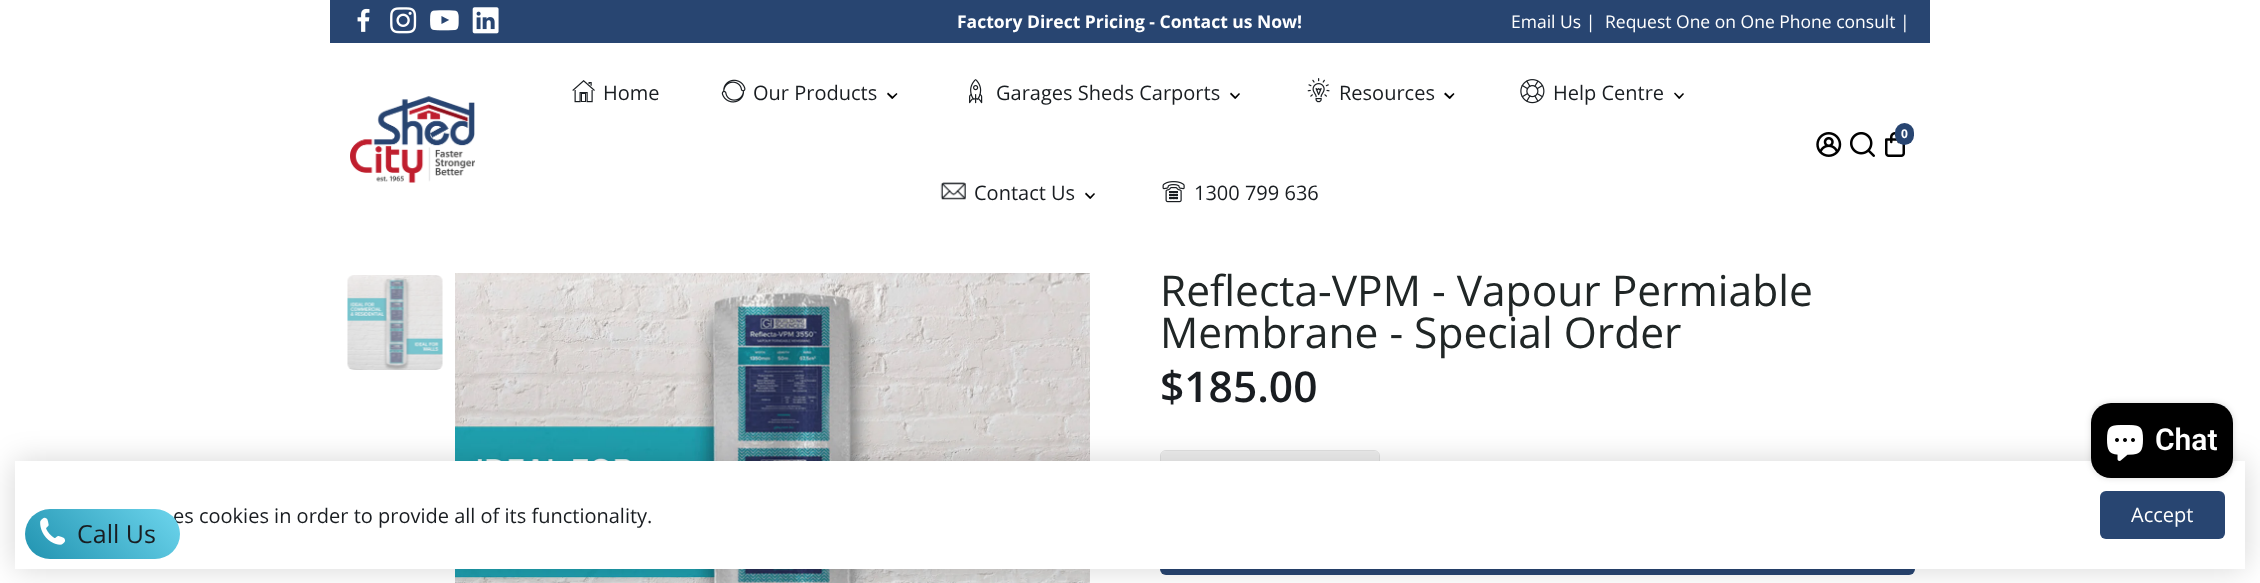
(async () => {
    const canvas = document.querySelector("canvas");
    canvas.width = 2260;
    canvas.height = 583;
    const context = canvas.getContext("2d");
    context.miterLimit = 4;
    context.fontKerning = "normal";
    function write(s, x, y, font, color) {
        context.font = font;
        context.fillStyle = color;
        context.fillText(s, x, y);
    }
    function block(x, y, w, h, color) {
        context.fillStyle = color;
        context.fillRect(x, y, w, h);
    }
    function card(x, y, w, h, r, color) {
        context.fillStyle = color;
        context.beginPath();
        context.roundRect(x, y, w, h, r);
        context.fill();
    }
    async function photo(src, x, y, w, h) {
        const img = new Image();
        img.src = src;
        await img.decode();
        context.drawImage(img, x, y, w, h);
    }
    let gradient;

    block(0, 0, 2260, 583, "rgb(255, 255, 255)");
    block(330, 0, 1600, 43, "rgb(40, 69, 113)");
    await photo("media/1.png", 357, 8, 13, 24);
    await photo("media/2.png", 390, 7, 27, 27);
    await photo("media/3.png", 430, 10, 29, 21);
    await photo("media/4.png", 472, 7, 27, 27);
    write("Factory Direct Pricing - Contact us Now!", 957, 28, "bold 17.5px Open Sans", "rgb(255, 255, 255)");
    write("Email Us |", 1511, 28, "17.5px Open Sans", "rgb(255, 255, 255)");
    write("Request One on One Phone consult |", 1605, 28, "17.5px Open Sans", "rgb(255, 255, 255)");
    await photo("media/5.png", 350, 96, 125, 87);
    await photo("media/6.png", 572, 80, 23, 23);
    write("Home", 603, 100, "20px Open Sans", "rgb(25, 29, 33)");
    await photo("media/7.png", 721, 79, 25, 24);
    write("Our Products", 753, 100, "20px Open Sans", "rgb(25, 29, 33)");
    context.fillStyle = "rgb(0, 0, 0)";
    context.beginPath();
    context.moveTo(896.5, 93);
    context.lineTo(897.5, 94);
    context.lineTo(892.5, 99);
    context.lineTo(891.5, 97.5);
    context.closePath();
    context.fill();
    context.beginPath();
    context.moveTo(888, 92.5);
    context.lineTo(893.5, 97.5);
    context.lineTo(892, 99);
    context.lineTo(887, 94);
    context.closePath();
    context.fill();
    await photo("media/8.png", 969, 79, 14, 25);
    write("Garages Sheds Carports", 996, 100, "20px Open Sans", "rgb(25, 29, 33)");
    context.fillStyle = "rgb(0, 0, 0)";
    context.beginPath();
    context.moveTo(1239, 93);
    context.lineTo(1240, 94);
    context.lineTo(1235.5, 99);
    context.lineTo(1234.5, 97.5);
    context.closePath();
    context.fill();
    context.beginPath();
    context.moveTo(1231, 92.5);
    context.lineTo(1236, 97.5);
    context.lineTo(1235, 99);
    context.lineTo(1230, 94);
    context.closePath();
    context.fill();
    await photo("media/9.png", 1307, 78, 23, 25);
    write("Resources", 1339, 100, "20px Open Sans", "rgb(25, 29, 33)");
    context.fillStyle = "rgb(0, 0, 0)";
    context.beginPath();
    context.moveTo(1453.5, 93);
    context.lineTo(1454.5, 94);
    context.lineTo(1450, 99);
    context.lineTo(1448.5, 97.5);
    context.closePath();
    context.fill();
    context.beginPath();
    context.moveTo(1445.5, 92.5);
    context.lineTo(1450.5, 97.5);
    context.lineTo(1449.5, 99);
    context.lineTo(1444, 94);
    context.closePath();
    context.fill();
    await photo("media/10.png", 1520, 79, 25, 25);
    write("Help Centre", 1553, 100, "20px Open Sans", "rgb(25, 29, 33)");
    context.fillStyle = "rgb(0, 0, 0)";
    context.beginPath();
    context.moveTo(1683, 93);
    context.lineTo(1684, 94);
    context.lineTo(1679.5, 99);
    context.lineTo(1678.5, 97.5);
    context.closePath();
    context.fill();
    context.beginPath();
    context.moveTo(1675, 92.5);
    context.lineTo(1680, 97.5);
    context.lineTo(1679, 99);
    context.lineTo(1674, 93.5);
    context.closePath();
    context.fill();
    await photo("media/11.png", 940, 182, 26, 18);
    write("Contact Us", 974, 200, "20px Open Sans", "rgb(25, 29, 33)");
    context.fillStyle = "rgb(0, 0, 0)";
    context.beginPath();
    context.moveTo(1094, 193);
    context.lineTo(1095, 194);
    context.lineTo(1090.5, 199);
    context.lineTo(1089.5, 197.5);
    context.closePath();
    context.fill();
    context.beginPath();
    context.moveTo(1086, 192.5);
    context.lineTo(1091, 197.5);
    context.lineTo(1090, 199);
    context.lineTo(1085, 194);
    context.closePath();
    context.fill();
    await photo("media/12.png", 1162, 181, 23, 22);
    write("1300 799 636", 1194, 200, "20px Open Sans", "rgb(25, 29, 33)");
    await photo("media/13.png", 1816, 132, 26, 25);
    await photo("media/14.png", 1850, 132, 25, 25);
    await photo("media/15.png", 1885, 132, 20, 25);
    card(1895, 123, 19, 22, 9.5, "rgb(40, 69, 113)");
    write("0", 1901, 138, "bold 12px Open Sans", "rgb(255, 255, 255)");
    await photo("media/16.png", 347, 275, 96, 95);
    await photo("media/17.png", 455, 273, 635, 310);
    write("Reflecta-VPM - Vapour Permiable", 1160, 306, "42.5px Open Sans", "rgb(32, 38, 38)");
    write("Membrane - Special Order", 1160, 348, "42.5px Open Sans", "rgb(32, 38, 38)");
    write("$185.00", 1160, 402, "600 42.5px Open Sans", "rgb(25, 29, 33)");
    context.beginPath();
    context.roundRect(1160.5, 450.5, 219, 59, 5.5);
    context.strokeStyle = "rgb(226, 226, 226)";
    context.stroke();
    context.fillStyle = "rgb(239, 239, 239)";
    context.beginPath();
    context.roundRect(1161, 451, 57, 58, [5, 0, 0, 5]);
    context.fill();
    block(1218, 451, 100, 10, "rgb(239, 239, 239)");
    context.beginPath();
    context.roundRect(1318, 451, 61, 58, [0, 5, 5, 0]);
    context.fill();
    card(1160, 520, 755, 55, 6, "rgb(40, 69, 113)");
    context.fillStyle = "rgba(0, 0, 0, 0.16)";
    context.filter = "blur(15px)";
    context.beginPath();
    context.rect(15, 461, 2230, 108);
    context.fill();
    context.filter = "none";
    block(15, 461, 2230, 108, "rgb(255, 255, 255)");
    context.fillStyle = "rgba(0, 0, 0, 0.15)";
    context.filter = "blur(3px)";
    context.beginPath();
    context.roundRect(2091, 403, 142, 75, 20);
    context.fill();
    context.filter = "none";
    card(2091, 403, 142, 75, 20, "rgb(0, 0, 0)");
    await photo("media/18.png", 2107, 425, 36, 36);
    write("Chat", 2155, 450, "600 30px Roboto", "rgb(255, 255, 255)");
    write("es cookies in order to provide all of its functionality.", 173, 523, "20px Open Sans", "rgb(25, 29, 33)");
    card(2100, 491, 125, 48, 6, "rgb(40, 69, 113)");
    write("Accept", 2131, 522, "20px Open Sans", "rgb(255, 255, 255)");
    gradient = context.createLinearGradient(51, 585, 154, 483);
    gradient.addColorStop(0, "rgb(33, 147, 176)");
    gradient.addColorStop(1, "rgb(109, 213, 237)");
    context.fillStyle = gradient;
    context.beginPath();
    context.roundRect(25, 509, 155, 50, 25);
    context.fill();
    await photo("media/19.png", 40, 517, 26, 28);
    write("Call Us", 77, 543, "25px Open Sans", "rgb(25, 29, 33)");
})();
